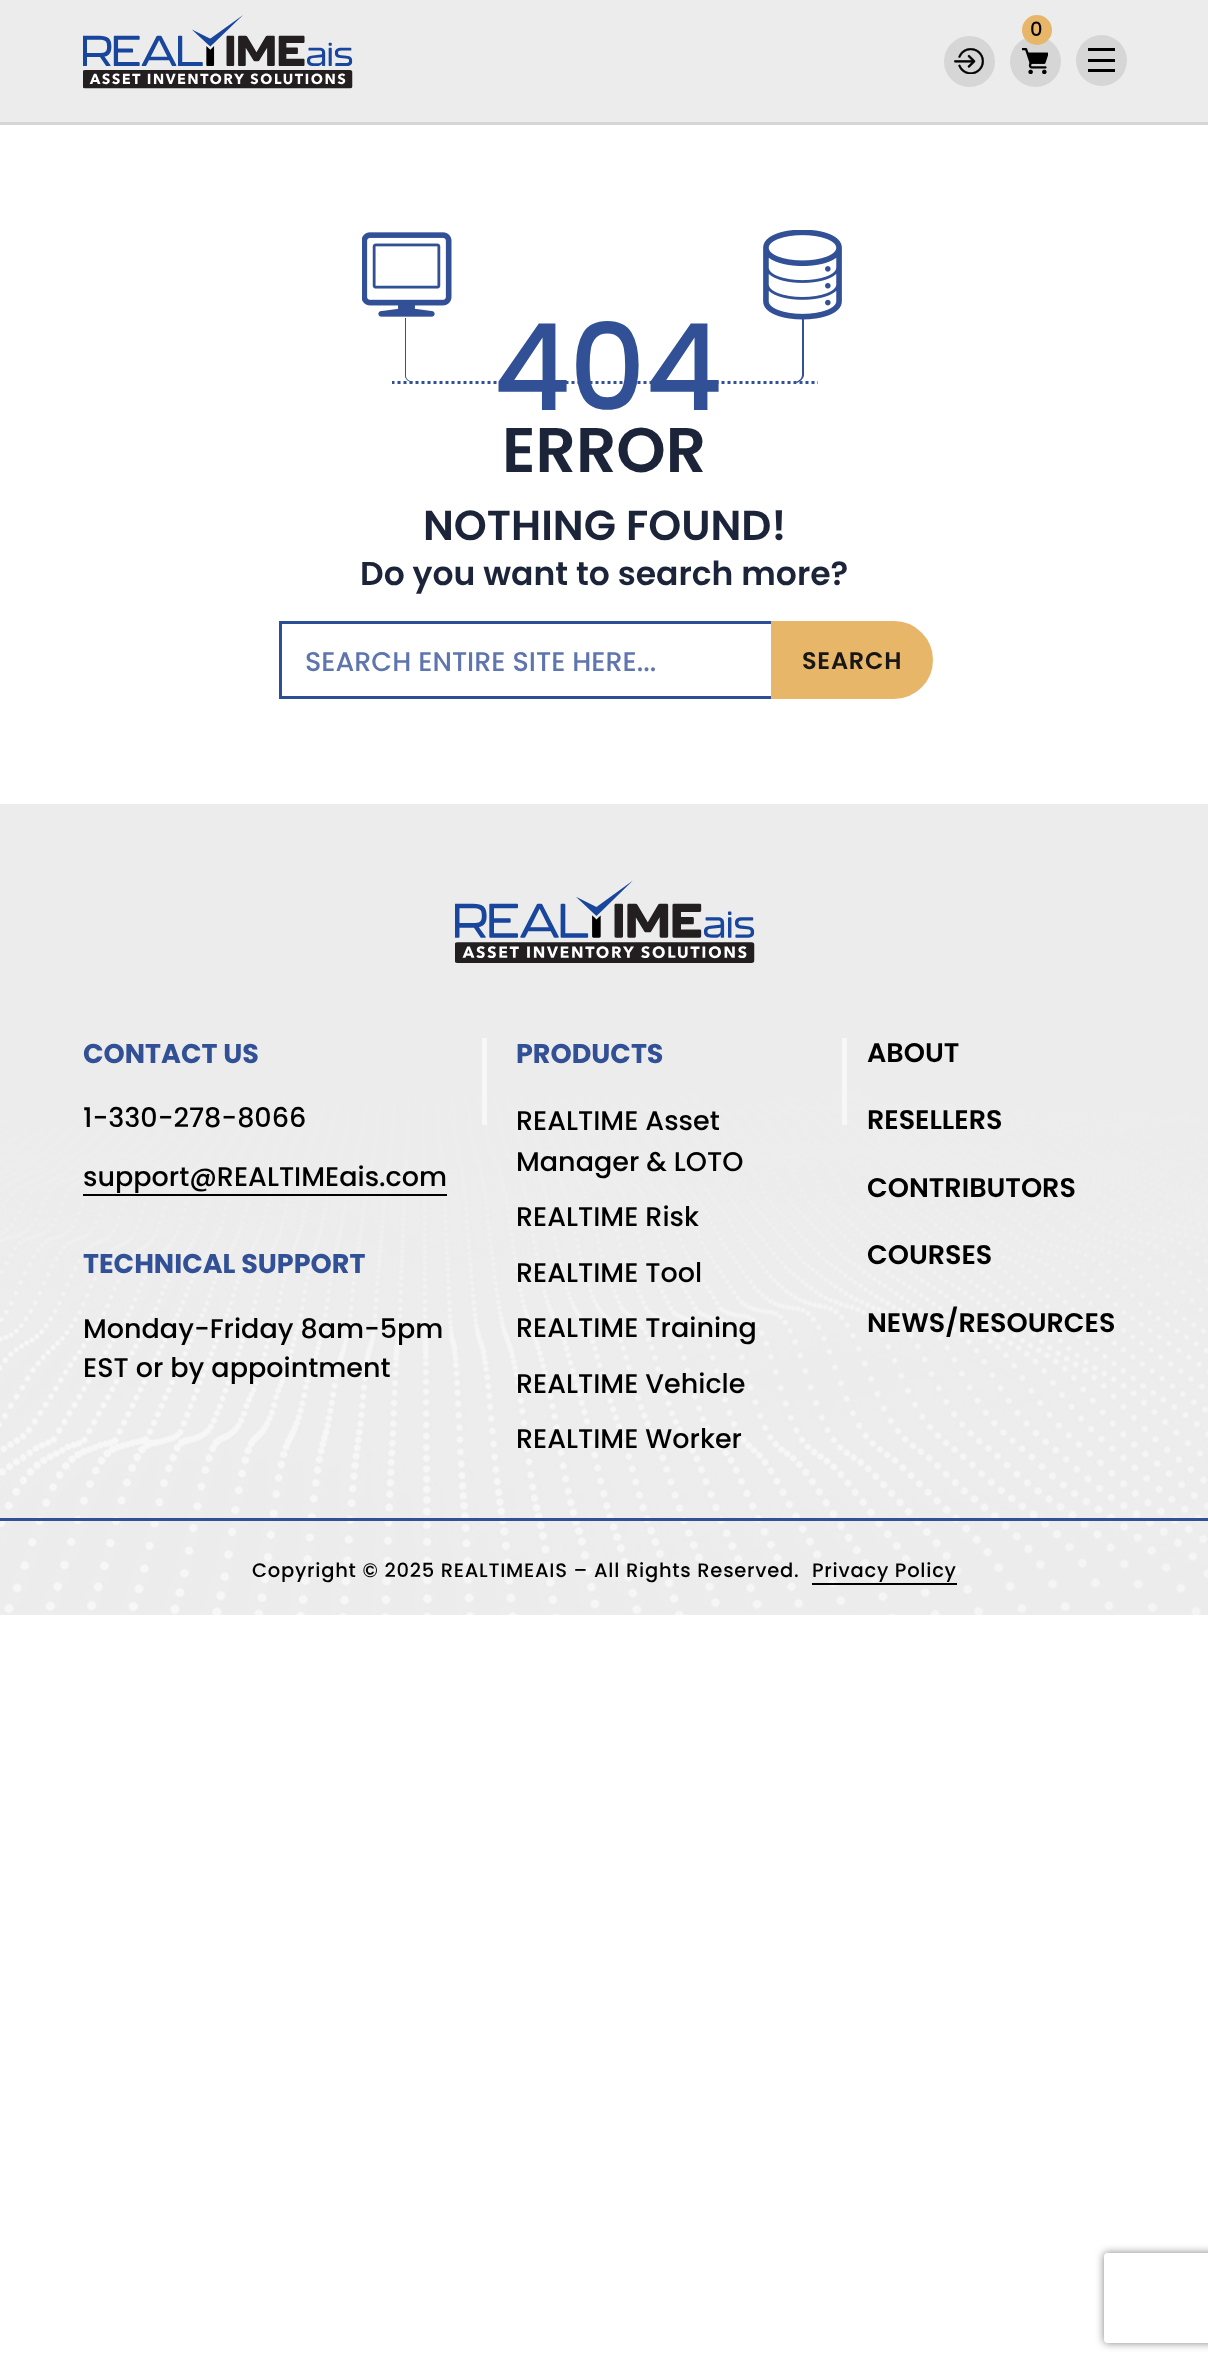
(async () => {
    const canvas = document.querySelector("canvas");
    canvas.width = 1208;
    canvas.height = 2364;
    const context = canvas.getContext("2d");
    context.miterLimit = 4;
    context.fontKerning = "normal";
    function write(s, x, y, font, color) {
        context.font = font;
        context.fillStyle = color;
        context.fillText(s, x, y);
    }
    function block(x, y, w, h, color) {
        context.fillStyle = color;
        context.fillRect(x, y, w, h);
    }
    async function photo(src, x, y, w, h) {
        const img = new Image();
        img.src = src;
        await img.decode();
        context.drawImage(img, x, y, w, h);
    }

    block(0, 0, 1208, 2364, "rgb(255, 255, 255)");
    block(0, 0, 1208, 122, "rgb(236, 236, 236)");
    block(0, 122, 1208, 3, "rgb(214, 214, 214)");
    await photo("media/1.png", 83, 15, 270, 74);
    context.beginPath();
    context.arc(1035.5, 61.5, 25.5, 0, Math.PI * 2);
    context.fill();
    context.fillStyle = "rgb(231, 182, 105)";
    context.beginPath();
    context.arc(1037, 30, 15, 0, Math.PI * 2);
    context.fill();
    write("0", 1030, 36, "500 19.5px Poppins", "rgb(0, 0, 0)");
    await photo("media/2.png", 1022, 48, 26, 26);
    context.fillStyle = "rgb(214, 214, 214)";
    context.beginPath();
    context.arc(969.5, 61.5, 24.5, 0, Math.PI * 2);
    context.fill();
    context.strokeStyle = "rgb(214, 214, 214)";
    context.lineWidth = 2;
    context.stroke();
    await photo("media/3.png", 954, 48, 30, 26);
    context.beginPath();
    context.arc(1101.5, 60.5, 25.5, 0, Math.PI * 2);
    context.fill();
    block(1088, 48, 27, 3, "rgb(0, 0, 0)");
    block(1088, 59, 27, 3, "rgb(0, 0, 0)");
    block(1088, 69, 27, 3, "rgb(0, 0, 0)");
    await photo("media/4.png", 362, 232, 90, 85);
    await photo("media/5.png", 763, 230, 79, 90);
    context.fillStyle = "rgb(50, 80, 150)";
    context.beginPath();
    context.moveTo(802, 319);
    context.lineTo(804, 318);
    context.lineTo(804, 375);
    context.bezierCurveTo(804, 378, 801, 381, 797, 383);
    context.lineTo(796, 382);
    context.bezierCurveTo(800, 380, 802, 378, 802, 375);
    context.closePath();
    context.fill();
    context.beginPath();
    context.moveTo(405, 318);
    context.lineTo(406, 318);
    context.lineTo(406, 376);
    context.bezierCurveTo(406, 379, 409, 381, 413, 382);
    context.lineTo(412, 383);
    context.bezierCurveTo(408, 381, 405, 379, 405, 376);
    context.closePath();
    context.fill();
    context.save();
    context.beginPath();
    context.rect(392, 315, 426, 72);
    context.clip();
    context.beginPath();
    context.moveTo(391.5, 382.5);
    context.lineTo(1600.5, 382.5);
    context.strokeStyle = "rgb(50, 80, 150)";
    context.lineWidth = 3;
    context.setLineDash([3, 3]);
    context.stroke();
    context.restore();
    context.letterSpacing = "-7px";
    write("4", 493, 410, "500 120px Poppins", "rgb(50, 80, 150)");
    write("0", 569, 410, "500 120px Poppins", "rgb(50, 80, 150)");
    write("4", 645, 410, "500 120px Poppins", "rgb(50, 80, 150)");
    context.letterSpacing = "0px";
    write("ERROR", 502, 472, "600 63px Poppins", "rgb(28, 36, 58)");
    write("NOTHING FOUND!", 423, 540, "600 42px Poppins", "rgb(28, 36, 58)");
    write("Do you want to search more?", 360, 585, "600 33px Poppins", "rgb(28, 36, 58)");
    context.strokeStyle = "rgb(44, 78, 153)";
    context.lineWidth = 3;
    context.strokeRect(280.5, 622.5, 492, 75);
    write("SEARCH ENTIRE SITE HERE...", 305, 671, "500 27px Poppins", "rgb(94, 117, 173)");
    context.fillStyle = "rgb(231, 182, 105)";
    context.beginPath();
    context.roundRect(772, 622, 160, 76, [0, 38, 38, 0]);
    context.fill();
    context.strokeStyle = "rgb(231, 182, 105)";
    context.lineWidth = 2;
    context.stroke();
    context.letterSpacing = "0.75px";
    write("SEARCH", 802, 669, "600 24px Poppins", "rgb(23, 23, 23)");
    await photo("media/6.png", 0, 804, 1208, 811);
    await photo("media/7.png", 455, 881, 300, 82);
    context.letterSpacing = "0px";
    write("CONTACT US", 83, 1063, "bold 27px Poppins", "rgb(50, 80, 150)");
    write("1-330-278-8066", 83, 1127, "500 27px Poppins", "rgb(0, 0, 0)");
    write("support@REALTIMEais.com", 83, 1186, "500 27px Poppins", "rgb(0, 0, 0)");
    block(83, 1194, 364, 2, "rgb(0, 0, 0)");
    block(482, 1038, 5, 87, "rgb(247, 247, 247)");
    write("TECHNICAL SUPPORT", 83, 1273, "bold 27px Poppins", "rgb(50, 80, 150)");
    write("Monday-Friday 8am-5pm", 83, 1338, "500 27px Poppins", "rgb(0, 0, 0)");
    write("EST or by appointment", 83, 1377, "500 27px Poppins", "rgb(0, 0, 0)");
    write("PRODUCTS", 516, 1063, "bold 27px Poppins", "rgb(50, 80, 150)");
    write("REALTIME Asset", 516, 1130, "500 27px Poppins", "rgb(0, 0, 0)");
    write("Manager & LOTO", 516, 1171, "500 27px Poppins", "rgb(0, 0, 0)");
    write("REALTIME Risk", 516, 1226, "500 27px Poppins", "rgb(0, 0, 0)");
    write("REALTIME Tool", 516, 1282, "500 27px Poppins", "rgb(0, 0, 0)");
    write("REALTIME Training", 516, 1337, "500 27px Poppins", "rgb(0, 0, 0)");
    write("REALTIME Vehicle", 516, 1393, "500 27px Poppins", "rgb(0, 0, 0)");
    write("REALTIME Worker", 516, 1448, "500 27px Poppins", "rgb(0, 0, 0)");
    block(842, 1038, 5, 87, "rgb(247, 247, 247)");
    write("ABOUT", 867, 1062, "600 27px Poppins", "rgb(0, 0, 0)");
    write("RESELLERS", 867, 1129, "600 27px Poppins", "rgb(0, 0, 0)");
    write("CONTRIBUTORS", 867, 1197, "600 27px Poppins", "rgb(0, 0, 0)");
    write("COURSES", 867, 1264, "600 27px Poppins", "rgb(0, 0, 0)");
    write("NEWS/RESOURCES", 867, 1332, "600 27px Poppins", "rgb(0, 0, 0)");
    block(0, 1518, 1208, 3, "rgb(50, 80, 150)");
    context.letterSpacing = "0.75px";
    write("Copyright © 2025 REALTIMEAIS – All Rights Reserved.", 252, 1577, "500 19.5px Poppins", "rgb(0, 0, 0)");
    block(812, 1583, 145, 2, "rgb(0, 0, 0)");
    write("Privacy Policy", 812, 1577, "500 19.5px Poppins", "rgb(0, 0, 0)");
    context.save();
    context.beginPath();
    context.moveTo(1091, 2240);
    context.lineTo(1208, 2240);
    context.lineTo(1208, 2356);
    context.lineTo(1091, 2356);
    context.closePath();
    context.moveTo(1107, 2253);
    context.lineTo(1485, 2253);
    context.bezierCurveTo(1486.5, 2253, 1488, 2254.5, 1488, 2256);
    context.lineTo(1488, 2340);
    context.bezierCurveTo(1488, 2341.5, 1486.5, 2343, 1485, 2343);
    context.lineTo(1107, 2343);
    context.bezierCurveTo(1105.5, 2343, 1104, 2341.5, 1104, 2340);
    context.lineTo(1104, 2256);
    context.bezierCurveTo(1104, 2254.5, 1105.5, 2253, 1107, 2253);
    context.closePath();
    context.clip("evenodd");
    context.fillStyle = "rgb(128, 128, 128)";
    context.filter = "blur(4px)";
    context.beginPath();
    context.roundRect(1104, 2253, 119, 90, 3);
    context.fill();
    context.filter = "none";
    context.restore();
})();
